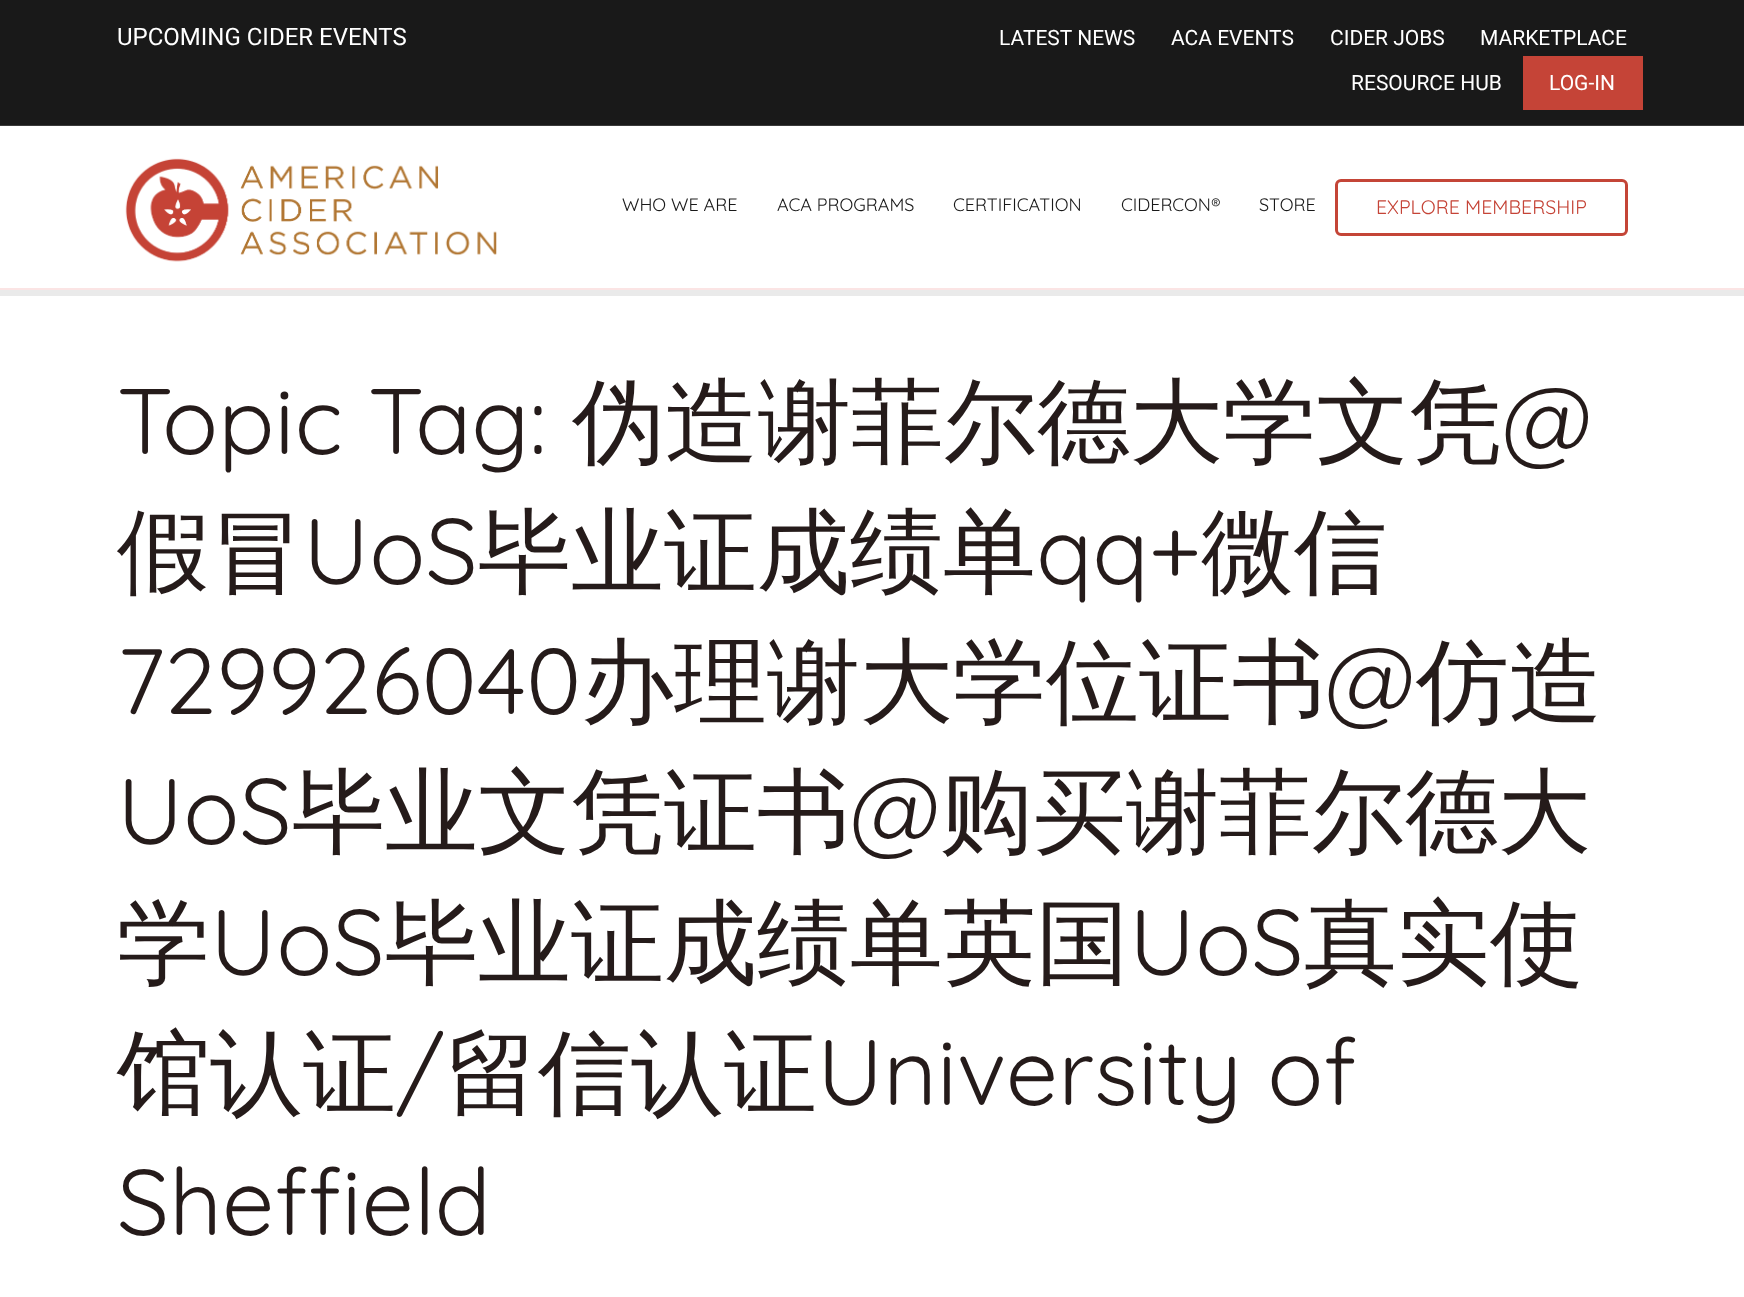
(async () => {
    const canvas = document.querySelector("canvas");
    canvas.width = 1744;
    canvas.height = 1297;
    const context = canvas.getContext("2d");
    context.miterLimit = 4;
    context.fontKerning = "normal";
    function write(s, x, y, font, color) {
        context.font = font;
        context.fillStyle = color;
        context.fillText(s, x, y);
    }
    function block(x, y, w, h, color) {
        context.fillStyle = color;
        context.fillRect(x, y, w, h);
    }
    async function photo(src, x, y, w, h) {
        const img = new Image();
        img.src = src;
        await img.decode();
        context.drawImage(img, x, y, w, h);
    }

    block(0, 0, 1744, 1297, "rgb(234, 234, 234)");
    block(0, 0, 1744, 125, "rgb(25, 25, 25)");
    block(0, 125, 1744, 1, "rgb(58, 58, 58)");
    write("UPCOMING CIDER EVENTS", 117, 45, "24px Roboto", "rgb(255, 255, 255)");
    write("LATEST NEWS", 999, 45, "21px Roboto", "rgb(255, 255, 255)");
    write("ACA EVENTS", 1171, 45, "21px Roboto", "rgb(255, 255, 255)");
    write("CIDER JOBS", 1330, 45, "21px Roboto", "rgb(255, 255, 255)");
    write("MARKETPLACE", 1480, 45, "21px Roboto", "rgb(255, 255, 255)");
    write("RESOURCE HUB", 1351, 90, "21px Roboto", "rgb(255, 255, 255)");
    block(1523, 56, 120, 54, "rgb(197, 68, 55)");
    write("LOG-IN", 1549, 90, "21px Roboto", "rgb(255, 255, 255)");
    block(0, 126, 1744, 162, "rgb(255, 255, 255)");
    block(0, 288, 1744, 2, "rgb(251, 228, 228)");
    await photo("media/1.png", 125, 158, 372, 104);
    write("WHO WE ARE", 622, 211, "300 18px Quicksand", "rgb(25, 25, 25)");
    write("ACA PROGRAMS", 777, 211, "300 18px Quicksand", "rgb(25, 25, 25)");
    write("CERTIFICATION", 953, 211, "300 18px Quicksand", "rgb(25, 25, 25)");
    write("CIDERCON®", 1121, 211, "300 18px Quicksand", "rgb(25, 25, 25)");
    write("STORE", 1259, 211, "300 18px Quicksand", "rgb(25, 25, 25)");
    context.beginPath();
    context.roundRect(1336.5, 180.5, 290, 54, 4.5);
    context.strokeStyle = "rgb(196, 69, 55)";
    context.lineWidth = 3;
    context.stroke();
    write("EXPLORE MEMBERSHIP", 1376, 214, "300 19.5px Quicksand", "rgb(197, 68, 55)");
    block(0, 296, 1744, 1001, "rgb(255, 255, 255)");
    write("Topic Tag:", 117, 454, "300 93px Quicksand", "rgb(37, 27, 26)");
    write("伪造谢菲尔德大学文凭", 572, 454, "500 93px WenQuanYi Zen Hei", "rgb(37, 27, 26)");
    write("@", 1502, 454, "300 93px Quicksand", "rgb(37, 27, 26)");
    write("假冒", 117, 584, "500 93px WenQuanYi Zen Hei", "rgb(37, 27, 26)");
    write("UoS", 303, 584, "300 93px Quicksand", "rgb(37, 27, 26)");
    write("毕业证成绩单", 478, 584, "500 93px WenQuanYi Zen Hei", "rgb(37, 27, 26)");
    write("qq+", 1036, 584, "300 93px Quicksand", "rgb(37, 27, 26)");
    write("微信", 1201, 584, "500 93px WenQuanYi Zen Hei", "rgb(37, 27, 26)");
    write("729926040", 117, 714, "300 93px Quicksand", "rgb(37, 27, 26)");
    write("办理谢大学位证书", 581, 714, "500 93px WenQuanYi Zen Hei", "rgb(37, 27, 26)");
    write("@", 1325, 714, "300 93px Quicksand", "rgb(37, 27, 26)");
    write("仿造", 1416, 714, "500 93px WenQuanYi Zen Hei", "rgb(37, 27, 26)");
    write("UoS", 117, 844, "300 93px Quicksand", "rgb(37, 27, 26)");
    write("毕业文凭证书", 292, 844, "500 93px WenQuanYi Zen Hei", "rgb(37, 27, 26)");
    write("@", 850, 844, "300 93px Quicksand", "rgb(37, 27, 26)");
    write("购买谢菲尔德大", 940, 844, "500 93px WenQuanYi Zen Hei", "rgb(37, 27, 26)");
    write("学", 117, 975, "500 93px WenQuanYi Zen Hei", "rgb(37, 27, 26)");
    write("UoS", 210, 975, "300 93px Quicksand", "rgb(37, 27, 26)");
    write("毕业证成绩单英国", 385, 975, "500 93px WenQuanYi Zen Hei", "rgb(37, 27, 26)");
    write("UoS", 1129, 975, "300 93px Quicksand", "rgb(37, 27, 26)");
    write("真实使", 1304, 975, "500 93px WenQuanYi Zen Hei", "rgb(37, 27, 26)");
    write("馆认证", 117, 1105, "500 93px WenQuanYi Zen Hei", "rgb(37, 27, 26)");
    write("/", 396, 1105, "300 93px Quicksand", "rgb(37, 27, 26)");
    write("留信认证", 445, 1105, "500 93px WenQuanYi Zen Hei", "rgb(37, 27, 26)");
    write("University of", 817, 1105, "300 93px Quicksand", "rgb(37, 27, 26)");
    write("Sheffield", 117, 1235, "300 93px Quicksand", "rgb(37, 27, 26)");
})();
